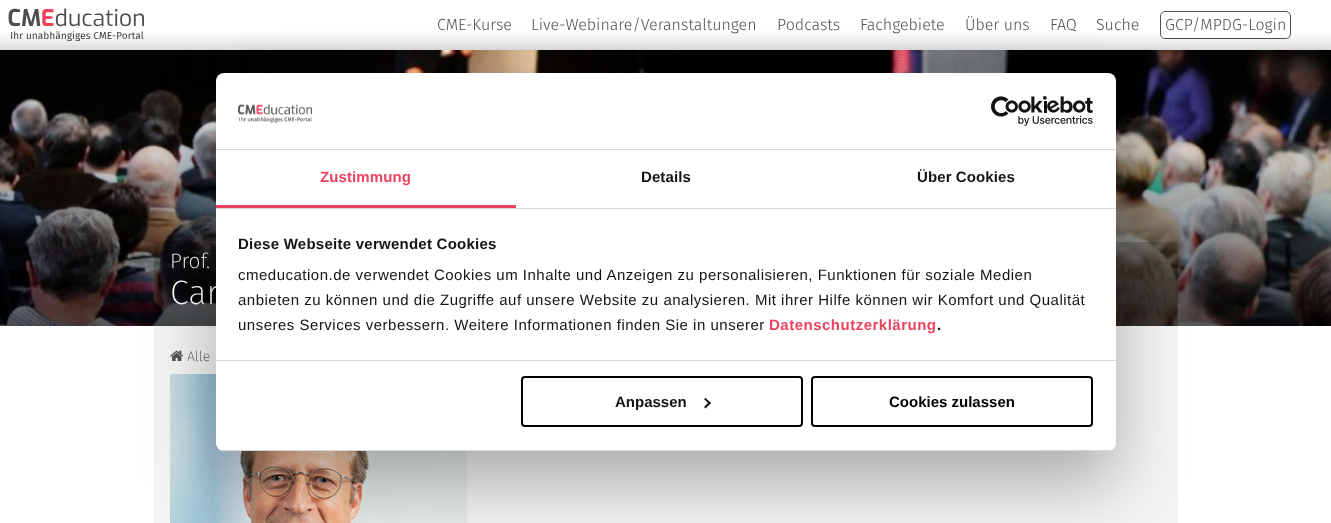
(async () => {
    const canvas = document.querySelector("canvas");
    canvas.width = 1331;
    canvas.height = 523;
    const context = canvas.getContext("2d");
    context.miterLimit = 4;
    context.fontKerning = "normal";
    function write(s, x, y, font, color) {
        context.font = font;
        context.fillStyle = color;
        context.fillText(s, x, y);
    }
    function block(x, y, w, h, color) {
        context.fillStyle = color;
        context.fillRect(x, y, w, h);
    }
    function card(x, y, w, h, r, color) {
        context.fillStyle = color;
        context.beginPath();
        context.roundRect(x, y, w, h, r);
        context.fill();
    }
    async function photo(src, x, y, w, h) {
        const img = new Image();
        img.src = src;
        await img.decode();
        context.drawImage(img, x, y, w, h);
    }
    let gradient;

    block(0, 0, 1331, 523, "rgb(255, 255, 255)");
    gradient = context.createLinearGradient(666, 30, 666, 50);
    gradient.addColorStop(0, "rgb(255, 255, 255)");
    gradient.addColorStop(0.65, "rgb(236, 236, 236)");
    gradient.addColorStop(1, "rgb(217, 217, 217)");
    context.fillStyle = gradient;
    context.fillRect(0, 32, 1331, 18);
    await photo("media/1.png", 8, 8, 136, 34);
    write("CME-Kurse", 437, 30, "300 16px Fira Sans", "rgb(80, 80, 80)");
    write("Live-Webinare/Veranstaltungen", 531, 30, "300 16px Fira Sans", "rgb(80, 80, 80)");
    write("Podcasts", 777, 30, "300 16px Fira Sans", "rgb(80, 80, 80)");
    write("Fachgebiete", 860, 30, "300 16px Fira Sans", "rgb(80, 80, 80)");
    write("Über uns", 965, 30, "300 16px Fira Sans", "rgb(80, 80, 80)");
    write("FAQ", 1050, 30, "300 16px Fira Sans", "rgb(80, 80, 80)");
    write("Suche", 1096, 30, "300 16px Fira Sans", "rgb(80, 80, 80)");
    context.fillStyle = "rgb(255, 255, 255)";
    context.beginPath();
    context.roundRect(1160.5, 11.5, 130, 27, 4.5);
    context.fill();
    context.strokeStyle = "rgb(80, 80, 80)";
    context.stroke();
    write("GCP/MPDG-Login", 1165, 30, "300 16px Fira Sans", "rgb(80, 80, 80)");
    await photo("media/2.png", 0, 50, 1331, 276);
    block(154, 242, 1024, 84, "rgba(0, 0, 0, 0.2)");
    write("Prof.", 170, 268, "200 21px Fira Sans", "rgb(255, 255, 255)");
    write("Car", 170, 304, "200 34px Fira Sans", "rgb(255, 255, 255)");
    block(154, 326, 1024, 197, "rgb(244, 244, 244)");
    await photo("media/5.png", 170, 350, 14, 11);
    await photo("media/6.png", 170, 374, 297, 149);
    context.fillStyle = "rgba(0, 0, 0, 0.3)";
    context.filter = "blur(34px)";
    context.beginPath();
    context.roundRect(216, 105, 900, 378, 8);
    context.fill();
    context.filter = "none";
    card(216, 73, 900, 378, 8, "rgb(255, 255, 255)");
    block(216, 149, 900, 1, "rgb(214, 214, 214)");
    await photo("media/3.png", 238, 104, 74, 20);
    await photo("media/4.png", 991, 96, 102, 30);
    block(216, 208, 900, 1, "rgb(214, 214, 214)");
    block(216, 205, 300, 3, "rgb(235, 66, 96)");
    context.letterSpacing = "0.1px";
    write("Zustimmung", 320, 182, "bold 15px Liberation Sans", "rgb(235, 66, 96)");
    write("Details", 641, 182, "bold 15px Liberation Sans", "rgb(20, 20, 20)");
    write("Über Cookies", 917, 182, "bold 15px Liberation Sans", "rgb(20, 20, 20)");
    block(216, 360, 900, 1, "rgb(214, 214, 214)");
    context.letterSpacing = "0.25px";
    write("Diese Webseite verwendet Cookies", 238, 249, "bold 15px Liberation Sans", "rgb(20, 20, 20)");
    context.letterSpacing = "0.5px";
    write("cmeducation.de verwendet Cookies um Inhalte und Anzeigen zu personalisieren, Funktionen für soziale Medien", 238, 280, "15px Liberation Sans", "rgb(20, 20, 20)");
    write("anbieten zu können und die Zugriffe auf unsere Website zu analysieren. Mit ihrer Hilfe können wir Komfort und Qualität", 238, 305, "15px Liberation Sans", "rgb(20, 20, 20)");
    write("unseres Services verbessern. Weitere Informationen finden Sie in unserer", 238, 330, "15px Liberation Sans", "rgb(20, 20, 20)");
    write("Datenschutzerklärung", 769, 330, "bold 15px Liberation Sans", "rgb(235, 66, 96)");
    write(".", 937, 330, "bold 15px Liberation Sans", "rgb(20, 20, 20)");
    context.save();
    context.beginPath();
    context.roundRect(216, 73, 900, 378, 8);
    context.clip();
    block(216, 450, 900, 1, "rgb(214, 214, 214)");
    context.restore();
    context.beginPath();
    context.roundRect(522, 377, 280, 49, 3);
    context.strokeStyle = "rgb(0, 0, 0)";
    context.lineWidth = 2;
    context.stroke();
    context.letterSpacing = "0px";
    write("Anpassen", 615, 407, "bold 15px Liberation Sans", "rgb(20, 20, 20)");
    context.beginPath();
    context.moveTo(705.5, 398);
    context.lineTo(711, 403);
    context.lineTo(709.5, 404.5);
    context.lineTo(704, 399);
    context.closePath();
    context.fill();
    context.beginPath();
    context.moveTo(709.5, 401.5);
    context.lineTo(711, 403);
    context.lineTo(705.5, 408.5);
    context.lineTo(704, 407);
    context.closePath();
    context.fill();
    context.beginPath();
    context.roundRect(812, 377, 280, 49, 3);
    context.stroke();
    write("Cookies zulassen", 889, 407, "bold 15px Liberation Sans", "rgb(0, 0, 0)");
    write("Alle", 187, 361, "200 14px Fira Sans", "rgb(80, 80, 80)");
})();
